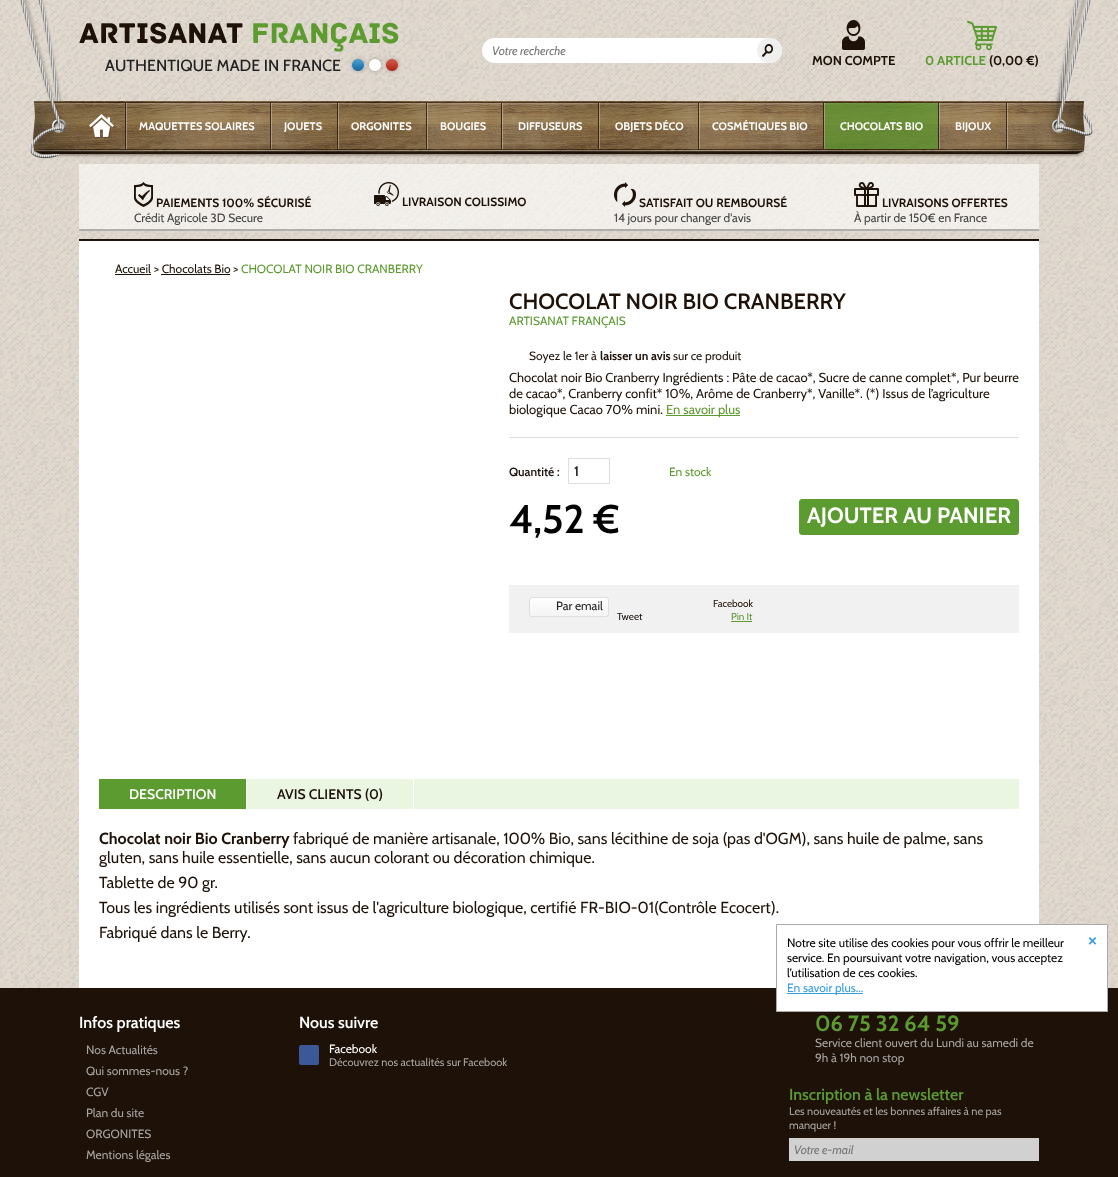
(async () => {
    const canvas = document.querySelector("canvas");
    canvas.width = 1118;
    canvas.height = 1177;
    const context = canvas.getContext("2d");
    context.miterLimit = 4;
    context.fontKerning = "normal";
    function write(s, x, y, font, color) {
        context.font = font;
        context.fillStyle = color;
        context.fillText(s, x, y);
    }
    function block(x, y, w, h, color) {
        context.fillStyle = color;
        context.fillRect(x, y, w, h);
    }
    function card(x, y, w, h, r, color) {
        context.fillStyle = color;
        context.beginPath();
        context.roundRect(x, y, w, h, r);
        context.fill();
    }
    async function photo(src, x, y, w, h) {
        const img = new Image();
        img.src = src;
        await img.decode();
        context.drawImage(img, x, y, w, h);
    }
    let gradient;

    block(0, 0, 1118, 1177, "rgb(255, 255, 255)");
    await photo("media/1.png", 0, 0, 1118, 988);
    await photo("media/2.png", 20, 0, 1073, 159);
    await photo("media/3.png", 79, 22, 322, 52);
    card(482, 38, 300, 25, 12.5, "rgb(255, 255, 255)");
    write("Votre recherche", 492, 55, "italic 12px Cabin", "rgb(117, 117, 117)");
    context.fillStyle = "rgb(239, 239, 239)";
    context.beginPath();
    context.arc(769.5, 50.5, 12.5, 0, Math.PI * 2);
    context.fill();
    await photo("media/4.png", 762, 44, 11, 13);
    await photo("media/5.png", 842, 20, 23, 30);
    write("MON COMPTE", 812, 65, "bold 13px Cabin", "rgb(30, 18, 8)");
    await photo("media/6.png", 967, 20, 30, 31);
    write("0 ARTICLE", 925, 65, "bold 13px Cabin", "rgb(92, 155, 48)");
    write("(0,00 €)", 989, 65, "bold 13px Cabin", "rgb(30, 18, 8)");
    await photo("media/7.png", 125, 103, 2, 46);
    await photo("media/8.png", 89, 114, 26, 24);
    await photo("media/9.png", 270, 103, 2, 46);
    write("MAQUETTES SOLAIRES", 139, 130, "bold 11px Cabin", "rgb(255, 255, 255)");
    await photo("media/10.png", 337, 103, 2, 46);
    write("JOUETS", 284, 130, "bold 11px Cabin", "rgb(255, 255, 255)");
    await photo("media/11.png", 426, 103, 2, 46);
    write("ORGONITES", 351, 130, "bold 11px Cabin", "rgb(255, 255, 255)");
    await photo("media/12.png", 501, 103, 2, 46);
    write("BOUGIES", 440, 130, "bold 11px Cabin", "rgb(255, 255, 255)");
    await photo("media/13.png", 598, 103, 2, 46);
    write("DIFFUSEURS", 518, 130, "bold 11px Cabin", "rgb(255, 255, 255)");
    await photo("media/14.png", 698, 103, 2, 46);
    write("OBJETS DÉCO", 615, 130, "bold 11px Cabin", "rgb(255, 255, 255)");
    await photo("media/15.png", 823, 103, 2, 46);
    write("COSMÉTIQUES BIO", 712, 130, "bold 11px Cabin", "rgb(255, 255, 255)");
    await photo("media/11.png", 938, 103, 2, 46);
    block(825, 103, 113, 46, "rgba(92, 155, 48, 0.7)");
    write("CHOCOLATS BIO", 840, 130, "bold 11px Cabin", "rgb(255, 255, 255)");
    await photo("media/16.png", 1006, 103, 2, 46);
    write("BIJOUX", 955, 130, "bold 11px Cabin", "rgb(255, 255, 255)");
    block(79, 164, 960, 67, "rgba(255, 255, 255, 0.6)");
    block(79, 229, 960, 2, "rgba(24, 24, 24, 0.3)");
    await photo("media/17.png", 134, 182, 19, 25);
    write("PAIEMENTS 100% SÉCURISÉ", 156, 207, "bold 12px Cabin", "rgb(30, 18, 8)");
    write("Crédit Agricole 3D Secure", 134, 222, "12px Cabin", "rgb(68, 68, 68)");
    await photo("media/18.png", 374, 182, 25, 24);
    write("LIVRAISON COLISSIMO", 402, 206, "bold 12px Cabin", "rgb(30, 18, 8)");
    await photo("media/19.png", 614, 182, 22, 25);
    write("SATISFAIT OU REMBOURSÉ", 639, 207, "bold 12px Cabin", "rgb(30, 18, 8)");
    write("14 jours pour changer d'avis", 614, 222, "12px Cabin", "rgb(68, 68, 68)");
    await photo("media/20.png", 854, 182, 25, 25);
    write("LIVRAISONS OFFERTES", 882, 207, "bold 12px Cabin", "rgb(30, 18, 8)");
    write("À partir de 150€ en France", 854, 222, "12px Cabin", "rgb(68, 68, 68)");
    block(79, 241, 960, 747, "rgb(255, 255, 255)");
    block(79, 239, 960, 2, "rgb(30, 18, 8)");
    write("Accueil", 115, 273, "12px Cabin", "rgb(30, 18, 8)");
    block(115, 274, 36, 1, "rgb(30, 18, 8)");
    write("> Chocolats Bio >", 154, 273, "12px Cabin", "rgb(30, 18, 8)");
    write("CHOCOLAT NOIR BIO CRANBERRY", 241, 273, "12px Cabin", "rgb(92, 155, 48)");
    block(161, 274, 69, 1, "rgb(30, 18, 8)");
    write("CHOCOLAT NOIR BIO CRANBERRY", 509, 309, "600 22px Cabin", "rgb(30, 18, 8)");
    write("ARTISANAT FRANÇAIS", 509, 325, "12px Cabin", "rgb(92, 155, 48)");
    write("Soyez le 1er à", 529, 360, "12px Cabin", "rgb(30, 18, 8)");
    write("laisser un avis", 600, 360, "bold 12px Cabin", "rgb(30, 18, 8)");
    write("sur ce produit", 673, 360, "12px Cabin", "rgb(30, 18, 8)");
    write("Chocolat noir Bio Cranberry Ingrédients : Pâte de cacao*, Sucre de canne complet*, Pur beurre", 509, 382, "13px Cabin", "rgb(30, 18, 8)");
    write("de cacao*, Cranberry confit* 10%, Arôme de Cranberry*, Vanille*. (*) Issus de l’agriculture", 509, 398, "13px Cabin", "rgb(30, 18, 8)");
    write("biologique Cacao 70% mini.", 509, 414, "13px Cabin", "rgb(30, 18, 8)");
    block(666, 415, 74, 1, "rgb(92, 155, 48)");
    write("En savoir plus", 666, 414, "13px Cabin", "rgb(92, 155, 48)");
    block(509, 437, 510, 1, "rgb(222, 222, 222)");
    write("Quantité :", 509, 476, "600 12px Cabin", "rgb(30, 18, 8)");
    context.strokeStyle = "rgb(222, 222, 222)";
    context.strokeRect(568.5, 458.5, 41, 25);
    write("1", 574, 476, "600 14px Cabin", "rgb(33, 33, 33)");
    write("En stock", 669, 476, "12px Cabin", "rgb(92, 155, 48)");
    write("4,52 €", 509, 533, "600 40px Cabin", "rgb(0, 0, 0)");
    context.fillStyle = "rgb(92, 155, 48)";
    context.beginPath();
    context.roundRect(799.5, 499.5, 219, 35, 2.5);
    context.fill();
    context.strokeStyle = "rgb(92, 155, 48)";
    context.stroke();
    write("AJOUTER AU PANIER", 807, 523, "bold 22px Cabin", "rgb(255, 255, 255)");
    block(509, 585, 510, 48, "rgb(241, 241, 241)");
    gradient = context.createLinearGradient(569, 598, 569, 616);
    gradient.addColorStop(0, "rgb(255, 255, 255)");
    gradient.addColorStop(1, "rgb(244, 244, 244)");
    context.fillStyle = gradient;
    context.beginPath();
    context.roundRect(530, 598, 78, 18, 2);
    context.fill();
    context.beginPath();
    context.roundRect(529.5, 597.5, 79, 19, 2.5);
    context.strokeStyle = "rgb(222, 222, 222)";
    context.stroke();
    write("Par email", 556, 610, "12px Cabin", "rgb(33, 33, 33)");
    write("Facebook", 713, 607, "10px Cabin", "rgb(30, 18, 8)");
    write("Tweet", 617, 620, "10px Cabin", "rgb(30, 18, 8)");
    write("Pin It", 731, 620, "10px Cabin", "rgb(92, 155, 48)");
    block(731, 621, 21, 1, "rgb(92, 155, 48)");
    block(247, 779, 772, 30, "rgb(234, 246, 226)");
    block(99, 779, 147, 30, "rgb(92, 155, 48)");
    write("DESCRIPTION", 129, 799, "600 14px Cabin", "rgb(255, 255, 255)");
    block(413, 779, 1, 30, "rgb(255, 255, 255)");
    write("AVIS CLIENTS (0)", 277, 799, "600 14px Cabin", "rgb(30, 18, 8)");
    write("Chocolat noir Bio Cranberry", 99, 844, "bold 16px Cabin", "rgb(30, 18, 8)");
    write("fabriqué de manière artisanale, 100% Bio, sans lécithine de soja (pas d'OGM), sans huile de palme, sans", 293, 844, "16px Cabin", "rgb(30, 18, 8)");
    write("gluten, sans huile essentielle, sans aucun colorant ou décoration chimique.", 99, 863, "16px Cabin", "rgb(30, 18, 8)");
    write("Tablette de 90 gr.", 99, 888, "16px Cabin", "rgb(30, 18, 8)");
    write("Tous les ingrédients utilisés sont issus de l'agriculture biologique, certifié FR-BIO-01(Contrôle Ecocert).", 99, 913, "16px Cabin", "rgb(30, 18, 8)");
    write("Fabriqué dans le Berry.", 99, 938, "16px Cabin", "rgb(30, 18, 8)");
    block(0, 988, 1118, 189, "rgb(30, 18, 8)");
    write("Infos pratiques", 79, 1028, "600 16px Cabin", "rgb(255, 255, 255)");
    write("Nos Actualités", 86, 1054, "12px Cabin", "rgb(166, 164, 163)");
    write("Qui sommes-nous ?", 86, 1075, "12px Cabin", "rgb(166, 164, 163)");
    write("CGV", 86, 1096, "12px Cabin", "rgb(166, 164, 163)");
    write("Plan du site", 86, 1117, "12px Cabin", "rgb(166, 164, 163)");
    write("ORGONITES", 86, 1138, "12px Cabin", "rgb(166, 164, 163)");
    write("Mentions légales", 86, 1159, "12px Cabin", "rgb(166, 164, 163)");
    write("Nous suivre", 299, 1028, "600 16px Cabin", "rgb(255, 255, 255)");
    card(299, 1045, 20, 20, 2, "rgb(59, 89, 152)");
    write("Facebook", 329, 1053, "12px Cabin", "rgb(255, 255, 255)");
    write("Découvrez nos actualités sur Facebook", 329, 1066, "11px Cabin", "rgb(166, 164, 163)");
    write("06 75 32 64 59", 815, 1031, "bold 22px Cabin", "rgb(92, 155, 48)");
    write("Service client ouvert du Lundi au samedi de", 815, 1047, "12px Cabin", "rgb(166, 164, 163)");
    write("9h à 19h non stop", 815, 1062, "12px Cabin", "rgb(166, 164, 163)");
    write("Inscription à la newsletter", 789, 1100, "600 16px Cabin", "rgb(92, 155, 48)");
    write("Les nouveautés et les bonnes affaires à ne pas", 789, 1115, "11px Cabin", "rgb(166, 164, 163)");
    write("manquer !", 789, 1129, "11px Cabin", "rgb(166, 164, 163)");
    block(789, 1138, 250, 23, "rgb(209, 209, 209)");
    write("Votre e-mail", 794, 1154, "italic 12px Cabin", "rgb(117, 117, 117)");
    context.fillStyle = "rgb(255, 255, 255)";
    context.beginPath();
    context.rect(776.5, 924.5, 331, 87);
    context.fill();
    context.strokeStyle = "rgb(170, 170, 170)";
    context.stroke();
    write("Notre site utilise des cookies pour vous offrir le meilleur", 787, 947, "12px Cabin", "rgb(0, 0, 0)");
    write("service. En poursuivant votre navigation, vous acceptez", 787, 962, "12px Cabin", "rgb(0, 0, 0)");
    write("l’utilisation de ces cookies.", 787, 977, "12px Cabin", "rgb(0, 0, 0)");
    block(787, 993, 76, 1, "rgb(55, 157, 226)");
    write("En savoir plus...", 787, 992, "12px Cabin", "rgb(55, 157, 226)");
    write("×", 1088, 947, "22px Cabin", "rgb(55, 157, 226)");
})();
